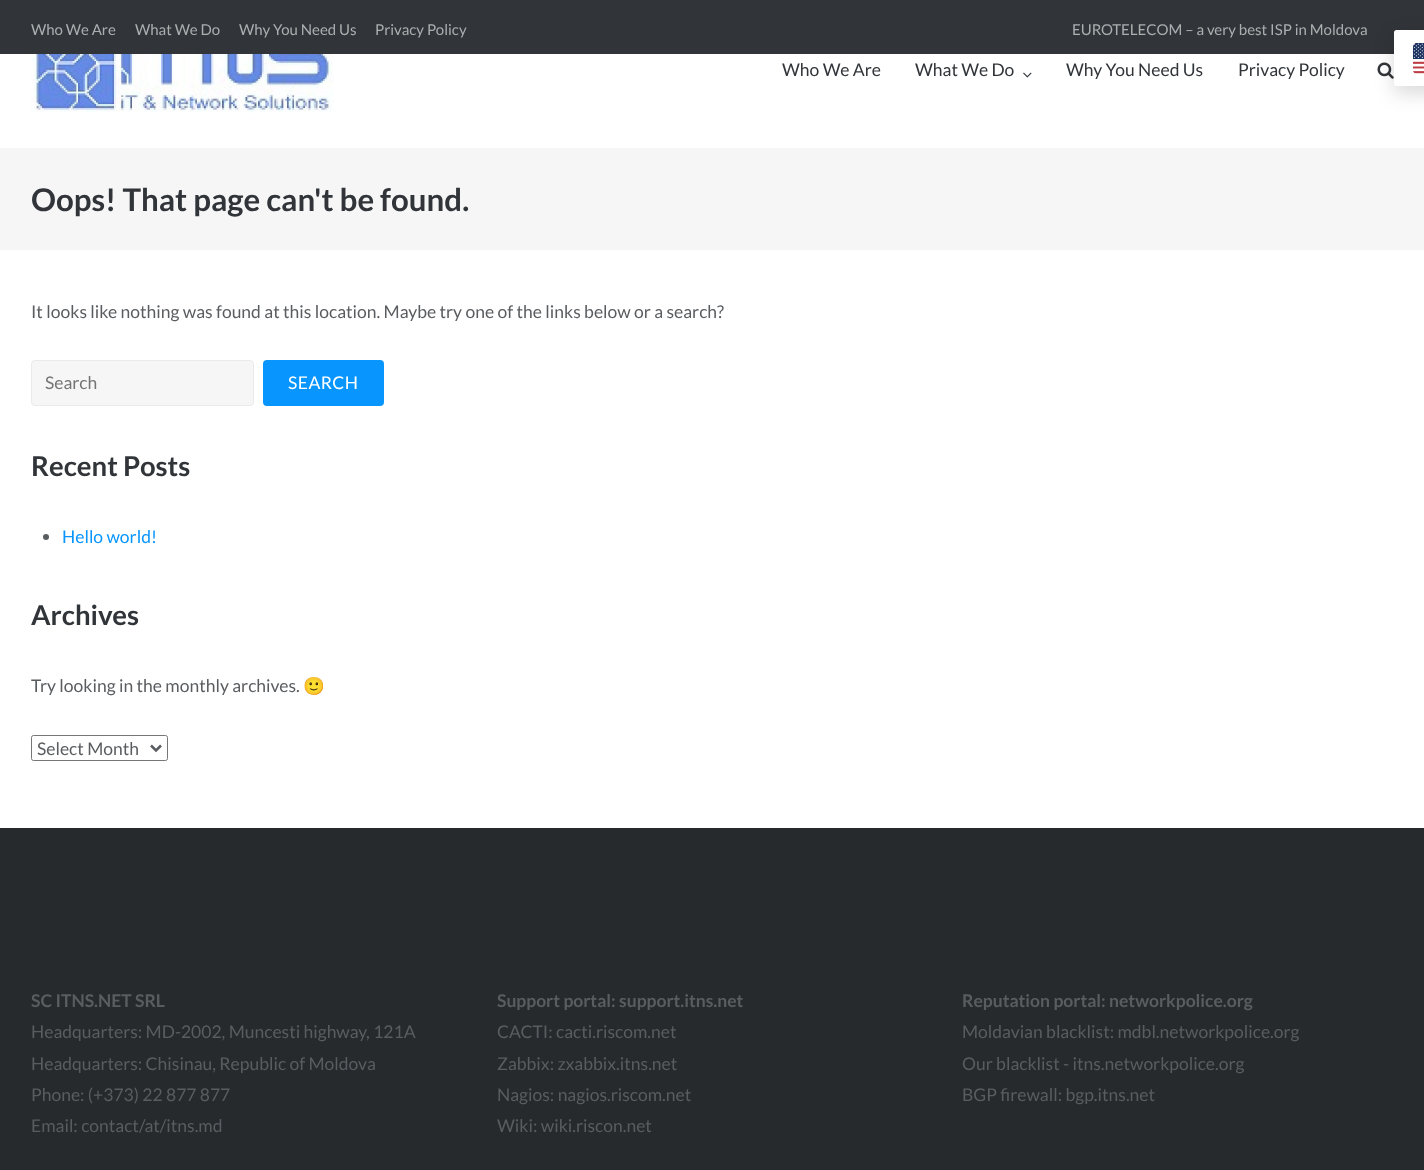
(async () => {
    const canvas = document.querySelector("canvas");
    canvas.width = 1424;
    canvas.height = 1170;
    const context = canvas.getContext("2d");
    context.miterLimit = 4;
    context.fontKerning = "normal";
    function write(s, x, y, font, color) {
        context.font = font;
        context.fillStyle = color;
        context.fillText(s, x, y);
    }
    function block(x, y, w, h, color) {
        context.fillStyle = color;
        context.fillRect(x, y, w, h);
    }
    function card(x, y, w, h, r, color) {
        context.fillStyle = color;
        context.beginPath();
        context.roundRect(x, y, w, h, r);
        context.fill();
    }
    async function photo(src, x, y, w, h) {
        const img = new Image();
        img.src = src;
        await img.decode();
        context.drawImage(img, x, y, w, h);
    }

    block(0, 0, 1424, 1170, "rgb(255, 255, 255)");
    block(0, 0, 1424, 54, "rgb(49, 53, 57)");
    write("Who We Are", 31, 35, "15px Lato", "rgb(172, 174, 175)");
    write("What We Do", 135, 35, "15px Lato", "rgb(172, 174, 175)");
    write("Why You Need Us", 239, 35, "15px Lato", "rgb(172, 174, 175)");
    write("Privacy Policy", 375, 35, "15px Lato", "rgb(172, 174, 175)");
    write("EUROTELECOM – a very best ISP in Moldova", 1072, 35, "15px Lato", "rgb(172, 174, 175)");
    await photo("media/4.png", 1377, 62, 17, 17);
    context.fillStyle = "rgba(0, 0, 0, 0.15)";
    context.filter = "blur(9.5px)";
    context.beginPath();
    context.roundRect(1394, 36, 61, 57, 2.5);
    context.fill();
    context.filter = "none";
    card(1394, 30, 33, 56, 2.5, "rgb(255, 255, 255)");
    await photo("media/1.png", 1413, 43, 11, 31);
    await photo("media/2.png", 31, 54, 303, 59);
    write("Who We Are", 782, 76, "17.5px Lato", "rgb(49, 53, 57)");
    write("What We Do", 915, 76, "17.5px Lato", "rgb(49, 53, 57)");
    await photo("media/3.png", 1023, 72, 9, 6);
    write("Why You Need Us", 1066, 76, "17.5px Lato", "rgb(49, 53, 57)");
    write("Privacy Policy", 1238, 76, "17.5px Lato", "rgb(49, 53, 57)");
    block(0, 148, 1424, 102, "rgb(246, 246, 247)");
    write("Oops! That page can't be found.", 31, 211, "bold 31.25px Lato", "rgb(49, 53, 57)");
    write("It looks like nothing was found at this location. Maybe try one of the links below or a search?", 31, 318, "17.5px Lato", "rgb(90, 93, 96)");
    context.fillStyle = "rgb(246, 246, 247)";
    context.beginPath();
    context.roundRect(31.5, 360.5, 222, 45, 3.5);
    context.fill();
    context.strokeStyle = "rgb(234, 234, 235)";
    context.stroke();
    write("Search", 45, 389, "17.5px Lato", "rgb(117, 117, 117)");
    card(263, 360, 121, 46, 4, "rgb(8, 150, 254)");
    context.letterSpacing = "0.5px";
    write("SEARCH", 288, 389, "17.5px Lato", "rgb(255, 255, 255)");
    context.letterSpacing = "0px";
    write("Recent Posts", 31, 476, "bold 27.5px Lato", "rgb(49, 53, 57)");
    context.fillStyle = "rgb(90, 93, 96)";
    context.beginPath();
    context.arc(46, 537, 3, 0, Math.PI * 2);
    context.fill();
    write("Hello world!", 62, 543, "17.5px Lato", "rgb(8, 150, 254)");
    write("Archives", 31, 625, "bold 27.5px Lato", "rgb(49, 53, 57)");
    write("Try looking in the monthly archives.", 31, 692, "17.5px Lato", "rgb(90, 93, 96)");
    write("🙂", 303, 692, "17.5px Noto Color Emoji", "rgb(90, 93, 96)");
    context.beginPath();
    context.roundRect(31.5, 735.5, 136, 25, 2);
    context.strokeStyle = "rgb(118, 118, 118)";
    context.stroke();
    context.beginPath();
    context.moveTo(151, 745.5);
    context.lineTo(156, 750.5);
    context.lineTo(161, 745.5);
    context.strokeStyle = "rgb(90, 93, 96)";
    context.lineWidth = 2.5;
    context.stroke();
    write("Select Month", 37, 755, "17.5px Lato", "rgb(90, 93, 96)");
    block(0, 828, 1424, 342, "rgb(39, 42, 45)");
    write("SC ITNS.NET SRL", 31, 1007, "bold 17.5px Lato", "rgb(90, 93, 96)");
    write("Headquarters: MD-2002, Muncesti highway, 121A", 31, 1038, "17.5px Lato", "rgb(90, 93, 96)");
    write("Headquarters: Chisinau, Republic of Moldova", 31, 1070, "17.5px Lato", "rgb(90, 93, 96)");
    write("Phone: (+373) 22 877 877", 31, 1101, "17.5px Lato", "rgb(90, 93, 96)");
    write("Email: contact/at/itns.md", 31, 1132, "17.5px Lato", "rgb(90, 93, 96)");
    write("Support portal: support.itns.net", 497, 1007, "bold 17.5px Lato", "rgb(90, 93, 96)");
    write("CACTI: cacti.riscom.net", 497, 1038, "17.5px Lato", "rgb(90, 93, 96)");
    write("Zabbix: zxabbix.itns.net", 497, 1070, "17.5px Lato", "rgb(90, 93, 96)");
    write("Nagios: nagios.riscom.net", 497, 1101, "17.5px Lato", "rgb(90, 93, 96)");
    write("Wiki: wiki.riscon.net", 497, 1132, "17.5px Lato", "rgb(90, 93, 96)");
    write("Reputation portal: networkpolice.org", 962, 1007, "bold 17.5px Lato", "rgb(90, 93, 96)");
    write("Moldavian blacklist: mdbl.networkpolice.org", 962, 1038, "17.5px Lato", "rgb(90, 93, 96)");
    write("Our blacklist - itns.networkpolice.org", 962, 1070, "17.5px Lato", "rgb(90, 93, 96)");
    write("BGP firewall: bgp.itns.net", 962, 1101, "17.5px Lato", "rgb(90, 93, 96)");
})();
